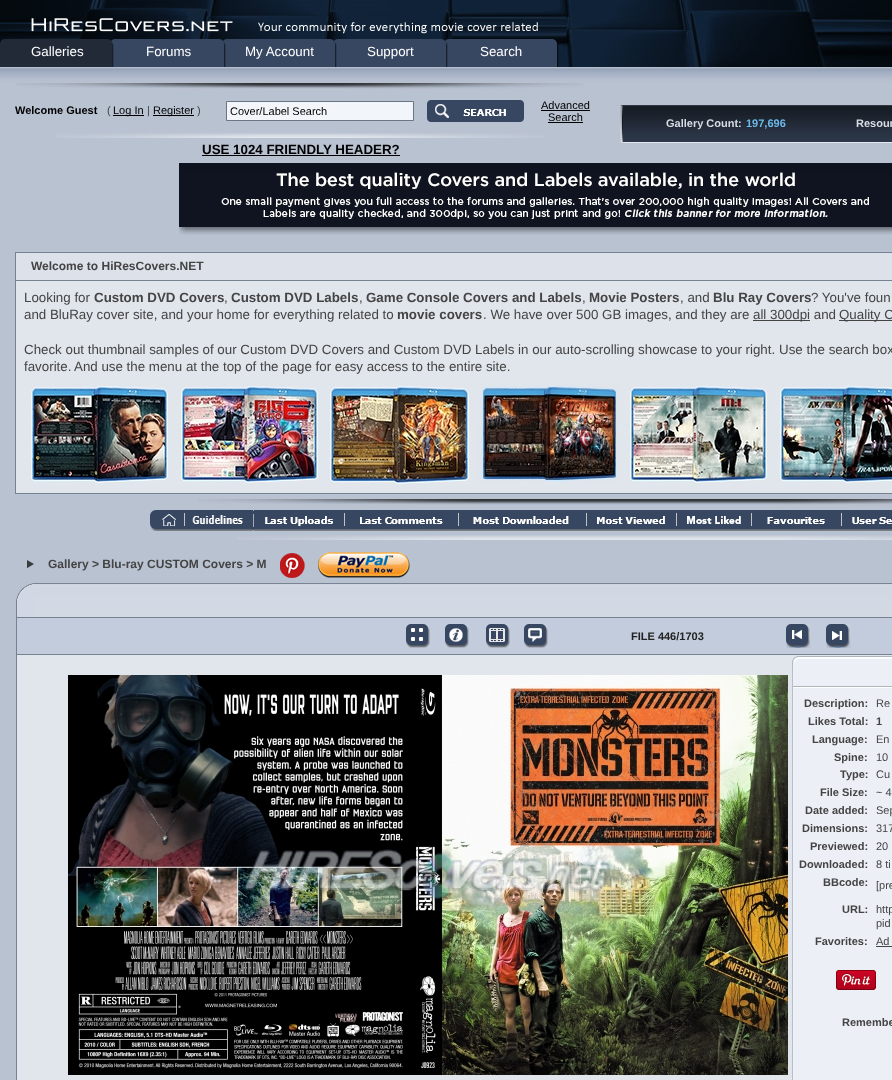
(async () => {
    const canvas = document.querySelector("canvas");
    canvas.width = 892;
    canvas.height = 1080;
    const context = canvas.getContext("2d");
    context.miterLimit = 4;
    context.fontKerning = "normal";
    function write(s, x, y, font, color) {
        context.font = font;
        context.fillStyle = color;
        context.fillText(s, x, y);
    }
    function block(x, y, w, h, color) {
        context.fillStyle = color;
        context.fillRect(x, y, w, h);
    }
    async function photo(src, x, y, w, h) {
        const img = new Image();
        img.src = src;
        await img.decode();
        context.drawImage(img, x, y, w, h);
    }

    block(0, 0, 892, 1080, "rgb(255, 255, 255)");
    await photo("media/1.png", 0, 0, 892, 67);
    await photo("media/2.png", 31, 18, 507, 16);
    await photo("media/3.png", 0, 39, 12, 28);
    block(12, 39, 91, 28, "rgb(34, 42, 56)");
    write("Galleries", 31, 56, "13.33px Liberation Sans", "rgb(255, 255, 255)");
    await photo("media/4.png", 103, 39, 20, 28);
    block(123, 39, 91, 28, "rgb(56, 71, 97)");
    write("Forums", 146, 56, "13.33px Liberation Sans", "rgb(255, 255, 255)");
    await photo("media/5.png", 214, 39, 20, 28);
    block(234, 39, 91, 28, "rgb(56, 71, 97)");
    write("My Account", 245, 56, "13.33px Liberation Sans", "rgb(255, 255, 255)");
    await photo("media/6.png", 325, 39, 20, 28);
    block(345, 39, 91, 28, "rgb(56, 71, 97)");
    write("Support", 367, 56, "13.33px Liberation Sans", "rgb(255, 255, 255)");
    await photo("media/7.png", 436, 39, 20, 28);
    block(456, 39, 91, 28, "rgb(56, 71, 97)");
    write("Search", 480, 56, "13.33px Liberation Sans", "rgb(255, 255, 255)");
    await photo("media/8.png", 547, 39, 12, 28);
    await photo("media/9.png", 0, 67, 892, 16);
    block(0, 83, 892, 997, "rgb(185, 194, 209)");
    await photo("media/10.png", 16, 83, 568, 7);
    write("Welcome Guest", 15, 114, "bold 11px Liberation Sans", "rgb(0, 0, 0)");
    write("(", 107, 114, "11px Liberation Sans", "rgb(68, 68, 68)");
    block(113, 115, 31, 1, "rgb(0, 0, 0)");
    write("Log In", 113, 114, "11px Liberation Sans", "rgb(0, 0, 0)");
    write("|", 147, 114, "11px Liberation Sans", "rgb(68, 68, 68)");
    block(153, 115, 41, 1, "rgb(0, 0, 0)");
    write("Register", 153, 114, "11px Liberation Sans", "rgb(0, 0, 0)");
    write(")", 197, 114, "11px Liberation Sans", "rgb(68, 68, 68)");
    context.fillStyle = "rgb(242, 245, 250)";
    context.beginPath();
    context.rect(226.5, 101.5, 187, 19);
    context.fill();
    context.strokeStyle = "rgb(107, 117, 135)";
    context.stroke();
    write("Cover/Label Search", 230, 115, "11px Liberation Sans", "rgb(0, 0, 0)");
    await photo("media/11.png", 427, 100, 97, 22);
    write("Advanced", 541, 109, "11px Liberation Sans", "rgb(0, 0, 0)");
    block(541, 110, 49, 1, "rgb(0, 0, 0)");
    write("Search", 548, 121, "11px Liberation Sans", "rgb(0, 0, 0)");
    block(548, 122, 35, 1, "rgb(0, 0, 0)");
    await photo("media/12.png", 56, 131, 488, 7);
    write("USE 1024 FRIENDLY HEADER?", 202, 154, "bold 13.33px Liberation Sans", "rgb(0, 0, 0)");
    block(202, 155, 198, 1, "rgb(0, 0, 0)");
    await photo("media/13.png", 620, 105, 3, 38);
    block(623, 105, 269, 1, "rgb(52, 56, 67)");
    block(623, 142, 269, 1, "rgb(229, 232, 239)");
    await photo("media/14.png", 623, 106, 4, 36);
    await photo("media/15.png", 627, 106, 265, 36);
    write("Gallery Count:", 666, 127, "bold 11px Liberation Sans", "rgb(216, 221, 229)");
    write("197,696", 746, 127, "bold 11px Liberation Sans", "rgb(109, 186, 234)");
    write("Resour", 856, 127, "bold 11px Liberation Sans", "rgb(216, 221, 229)");
    await photo("media/16.png", 179, 163, 713, 72);
    block(16, 281, 876, 212, "rgb(225, 229, 236)");
    context.strokeStyle = "rgb(118, 129, 146)";
    context.strokeRect(15.5, 252.5, 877, 241);
    block(16, 253, 876, 27, "rgb(220, 225, 234)");
    block(16, 280, 876, 1, "rgb(118, 129, 146)");
    write("Welcome to HiResCovers.NET", 31, 270, "bold 12px Liberation Sans", "rgb(68, 68, 68)");
    write("Looking for", 24, 302, "13.33px Liberation Sans", "rgb(68, 68, 68)");
    write("Custom DVD Covers", 94, 302, "bold 13.33px Liberation Sans", "rgb(68, 68, 68)");
    write(",", 224, 302, "13.33px Liberation Sans", "rgb(68, 68, 68)");
    write("Custom DVD Labels", 231, 302, "bold 13.33px Liberation Sans", "rgb(68, 68, 68)");
    write(",", 359, 302, "13.33px Liberation Sans", "rgb(68, 68, 68)");
    write("Game Console Covers and Labels", 366, 302, "bold 13.33px Liberation Sans", "rgb(68, 68, 68)");
    write(",", 582, 302, "13.33px Liberation Sans", "rgb(68, 68, 68)");
    write("Movie Posters", 589, 302, "bold 13.33px Liberation Sans", "rgb(68, 68, 68)");
    write(", and", 680, 302, "13.33px Liberation Sans", "rgb(68, 68, 68)");
    write("Blu Ray Covers", 713, 302, "bold 13.33px Liberation Sans", "rgb(68, 68, 68)");
    write("? You've foun", 811, 302, "13.33px Liberation Sans", "rgb(68, 68, 68)");
    write("and BluRay cover site, and your home for everything related to", 24, 319, "13.33px Liberation Sans", "rgb(68, 68, 68)");
    write("movie covers", 397, 319, "bold 13.33px Liberation Sans", "rgb(68, 68, 68)");
    write(". We have over 500 GB images, and they are", 483, 319, "13.33px Liberation Sans", "rgb(68, 68, 68)");
    block(753, 320, 57, 1, "rgb(68, 68, 68)");
    write("all 300dpi and", 753, 319, "13.33px Liberation Sans", "rgb(68, 68, 68)");
    block(839, 320, 53, 1, "rgb(68, 68, 68)");
    write("Quality C", 839, 319, "13.33px Liberation Sans", "rgb(68, 68, 68)");
    write("Check out thumbnail samples of our Custom DVD Covers and Custom DVD Labels in our auto-scrolling showcase to your right.", 24, 354, "13.33px Liberation Sans", "rgb(68, 68, 68)");
    write("Use the search box", 779, 354, "13.33px Liberation Sans", "rgb(68, 68, 68)");
    write("favorite.", 24, 371, "13.33px Liberation Sans", "rgb(68, 68, 68)");
    write("And use the menu at the top of the page for easy access to the entire site.", 74, 371, "13.33px Liberation Sans", "rgb(68, 68, 68)");
    await photo("media/17.png", 30, 383, 862, 102);
    await photo("media/18.png", 197, 499, 280, 7);
    await photo("media/19.png", 477, 499, 300, 6);
    await photo("media/20.png", 777, 499, 115, 7);
    await photo("media/21.png", 150, 510, 35, 21);
    await photo("media/22.png", 185, 510, 69, 21);
    await photo("media/23.png", 254, 510, 91, 21);
    await photo("media/24.png", 345, 510, 114, 21);
    await photo("media/25.png", 459, 510, 128, 21);
    await photo("media/26.png", 587, 510, 90, 21);
    await photo("media/27.png", 677, 510, 75, 21);
    await photo("media/28.png", 752, 510, 90, 21);
    await photo("media/29.png", 842, 510, 50, 21);
    await photo("media/30.png", 237, 535, 240, 5);
    await photo("media/31.png", 477, 535, 300, 5);
    await photo("media/32.png", 777, 535, 115, 5);
    await photo("media/33.png", 21, 560, 13, 16);
    write("Gallery > Blu-ray CUSTOM Covers > M", 48, 568, "bold 12px Liberation Sans", "rgb(68, 68, 68)");
    await photo("media/34.png", 280, 553, 25, 25);
    await photo("media/35.png", 318, 552, 92, 26);
    await photo("media/36.png", 34, 583, 858, 34);
    await photo("media/37.png", 16, 583, 18, 34);
    block(17, 655, 875, 425, "rgb(225, 229, 236)");
    context.strokeRect(16.5, 617.5, 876, 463);
    block(17, 618, 875, 36, "rgb(194, 204, 220)");
    block(17, 654, 875, 1, "rgb(118, 129, 146)");
    await photo("media/38.png", 406, 624, 24, 24);
    await photo("media/39.png", 445, 624, 24, 24);
    await photo("media/40.png", 486, 624, 24, 24);
    await photo("media/41.png", 524, 624, 24, 24);
    block(667, 636, 1, 1, "rgb(255, 255, 255)");
    write("FILE 446/1703", 631, 640, "bold 11px Liberation Sans", "rgb(34, 34, 34)");
    await photo("media/42.png", 786, 624, 25, 24);
    await photo("media/43.png", 826, 624, 25, 24);
    await photo("media/44.png", 68, 675, 720, 400);
    await photo("media/45.png", 798, 656, 94, 10);
    await photo("media/46.png", 792, 656, 6, 10);
    block(793, 666, 99, 20, "rgb(236, 239, 245)");
    block(792, 686, 100, 1, "rgb(177, 180, 185)");
    block(792, 666, 1, 21, "rgb(184, 190, 199)");
    block(793, 688, 99, 392, "rgb(236, 239, 245)");
    block(792, 687, 100, 1, "rgb(252, 255, 255)");
    block(792, 687, 1, 393, "rgb(184, 190, 199)");
    write("Description:", 804, 707, "bold 11px Liberation Sans", "rgb(68, 68, 68)");
    write("Re", 876, 707, "11px Liberation Sans", "rgb(68, 68, 68)");
    write("Likes Total:", 808, 725, "bold 11px Liberation Sans", "rgb(68, 68, 68)");
    write("1", 876, 725, "bold 11px Liberation Sans", "rgb(68, 68, 68)");
    write("Language:", 812, 743, "bold 11px Liberation Sans", "rgb(68, 68, 68)");
    write("En", 876, 743, "11px Liberation Sans", "rgb(68, 68, 68)");
    write("Spine:", 834, 761, "bold 11px Liberation Sans", "rgb(68, 68, 68)");
    write("10", 876, 761, "11px Liberation Sans", "rgb(68, 68, 68)");
    write("Type:", 840, 778, "bold 11px Liberation Sans", "rgb(68, 68, 68)");
    write("Cu", 876, 778, "11px Liberation Sans", "rgb(68, 68, 68)");
    write("File Size:", 820, 796, "bold 11px Liberation Sans", "rgb(68, 68, 68)");
    write("~ 4", 876, 796, "11px Liberation Sans", "rgb(68, 68, 68)");
    write("Date added:", 805, 814, "bold 11px Liberation Sans", "rgb(68, 68, 68)");
    write("Sep", 876, 814, "11px Liberation Sans", "rgb(68, 68, 68)");
    write("Dimensions:", 802, 832, "bold 11px Liberation Sans", "rgb(68, 68, 68)");
    write("317", 876, 832, "11px Liberation Sans", "rgb(68, 68, 68)");
    write("Previewed:", 810, 850, "bold 11px Liberation Sans", "rgb(68, 68, 68)");
    write("20", 876, 850, "11px Liberation Sans", "rgb(68, 68, 68)");
    write("Downloaded:", 799, 868, "bold 11px Liberation Sans", "rgb(68, 68, 68)");
    write("8 ti", 876, 868, "11px Liberation Sans", "rgb(68, 68, 68)");
    write("BBcode:", 823, 886, "bold 11px Liberation Sans", "rgb(68, 68, 68)");
    write("[pre", 876, 889, "11px Liberation Sans", "rgb(68, 68, 68)");
    write("URL:", 842, 913, "bold 11px Liberation Sans", "rgb(68, 68, 68)");
    write("http", 876, 913, "11px Liberation Sans", "rgb(68, 68, 68)");
    write("pid", 876, 927, "11px Liberation Sans", "rgb(68, 68, 68)");
    write("Favorites:", 815, 945, "bold 11px Liberation Sans", "rgb(68, 68, 68)");
    write("Ad", 876, 945, "11px Liberation Sans", "rgb(68, 68, 68)");
    block(876, 946, 16, 1, "rgb(68, 68, 68)");
    await photo("media/47.png", 836, 970, 40, 20);
    write("Remembe", 842, 1026, "bold 11px Liberation Sans", "rgb(68, 68, 68)");
})();
